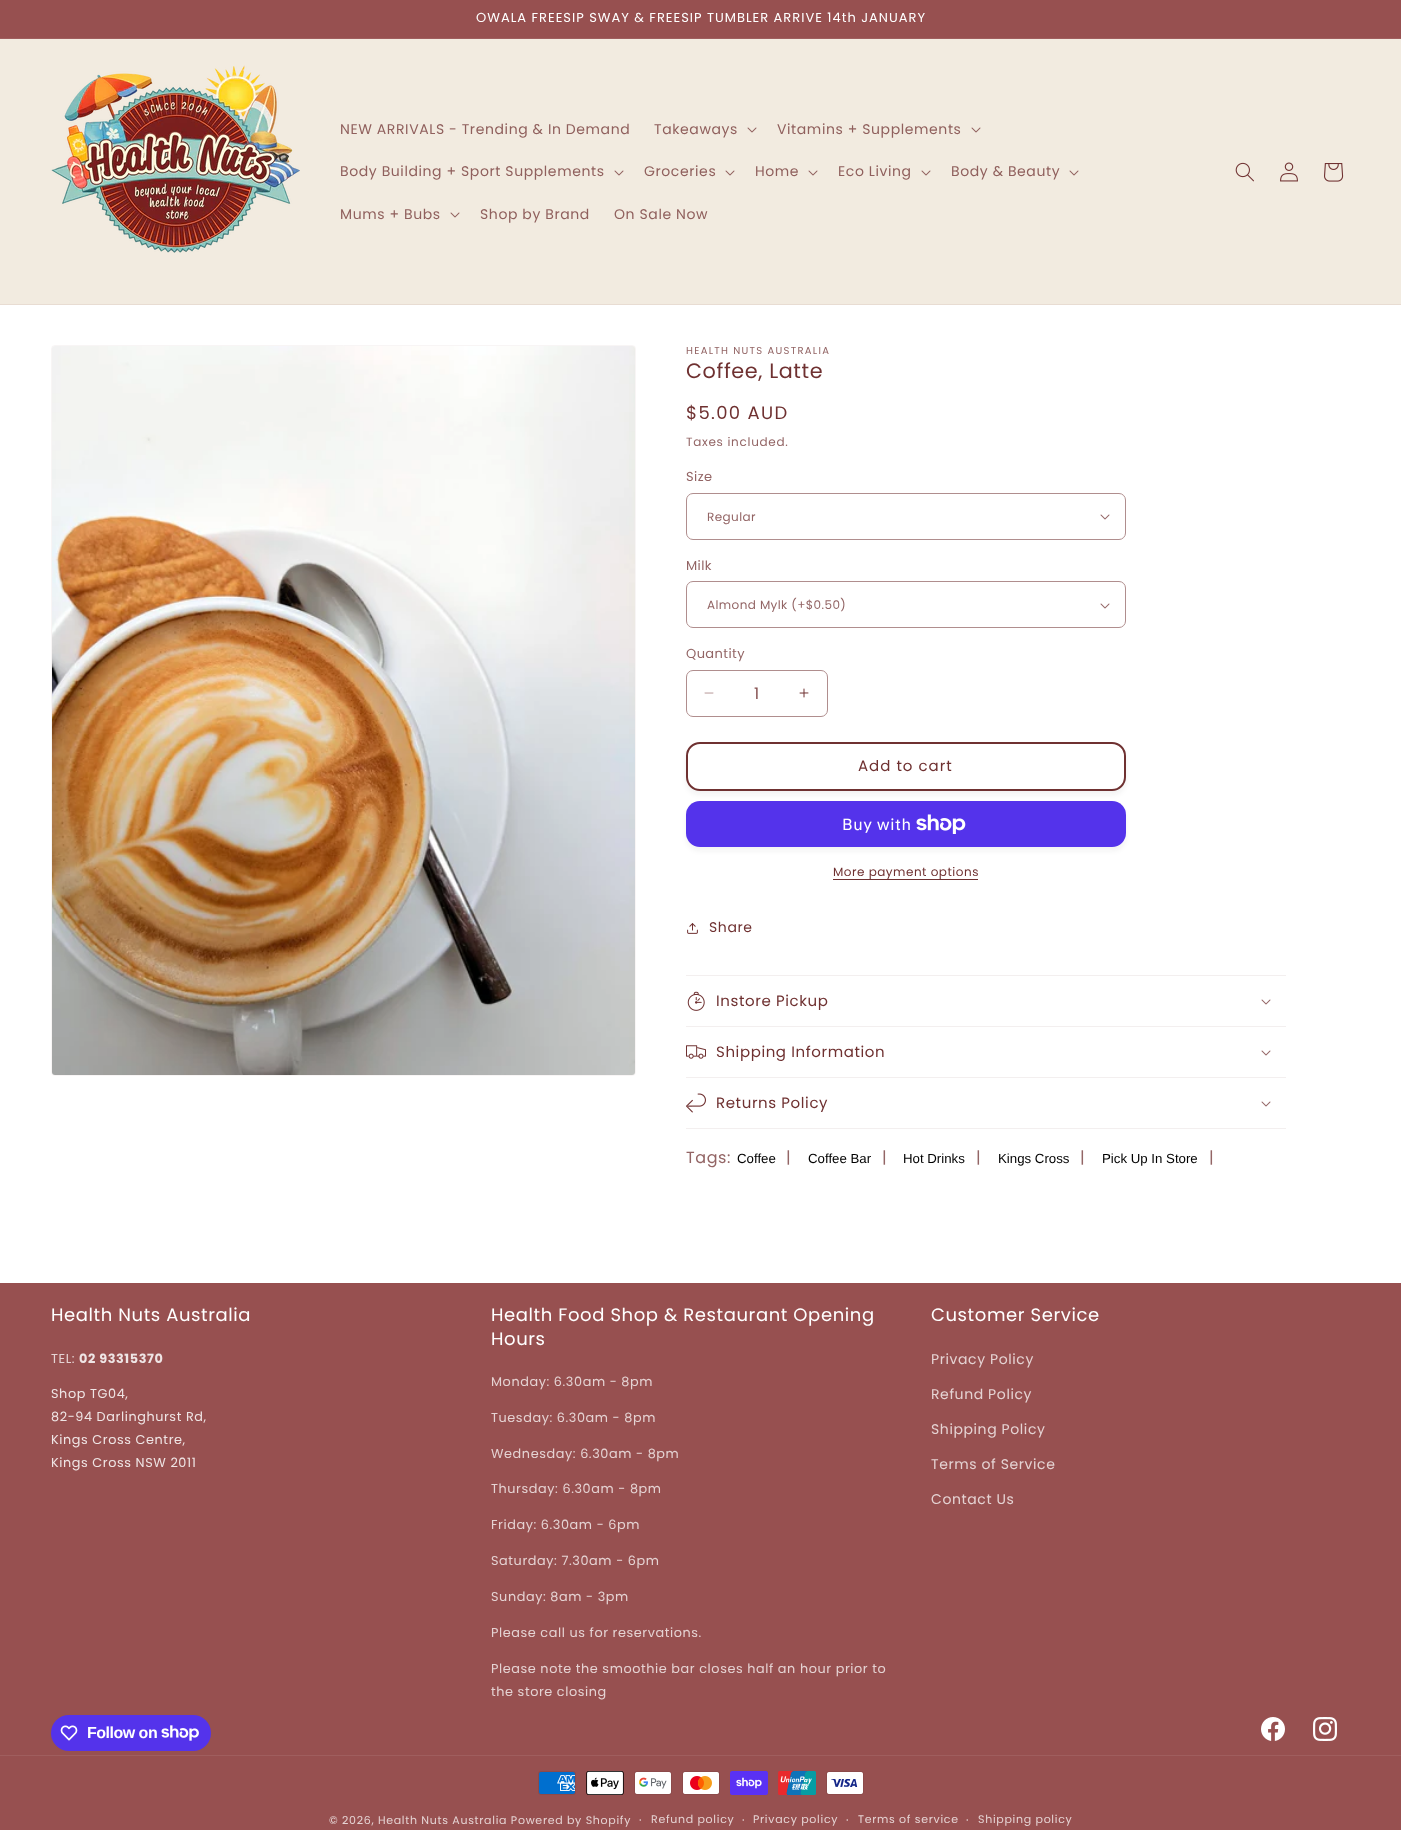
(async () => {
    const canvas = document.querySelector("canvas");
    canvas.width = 1401;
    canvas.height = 1830;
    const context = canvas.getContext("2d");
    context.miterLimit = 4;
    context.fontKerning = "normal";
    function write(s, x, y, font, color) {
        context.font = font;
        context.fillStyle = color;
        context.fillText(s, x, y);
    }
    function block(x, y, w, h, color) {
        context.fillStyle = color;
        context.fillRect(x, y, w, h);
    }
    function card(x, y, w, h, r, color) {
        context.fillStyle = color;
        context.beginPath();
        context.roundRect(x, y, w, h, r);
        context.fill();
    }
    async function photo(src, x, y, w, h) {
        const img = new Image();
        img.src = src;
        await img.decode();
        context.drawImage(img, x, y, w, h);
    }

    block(0, 0, 1401, 1830, "rgb(255, 255, 255)");
    block(0, 0, 1401, 38, "rgb(151, 80, 80)");
    block(0, 38, 1401, 1, "rgb(159, 94, 94)");
    context.letterSpacing = "1px";
    write("OWALA FREESIP SWAY & FREESIP TUMBLER ARRIVE 14th JANUARY", 476, 22, "13px Poppins", "rgb(255, 255, 255)");
    block(0, 39, 1401, 265, "rgb(242, 235, 224)");
    block(0, 304, 1401, 1, "rgb(232, 220, 210)");
    await photo("media/1.png", 51, 65, 249, 188);
    context.letterSpacing = "0.6px";
    write("NEW ARRIVALS - Trending & In Demand", 340, 134, "14px Poppins", "rgb(144, 96, 93)");
    write("Takeaways", 654, 134, "14px Poppins", "rgb(144, 96, 93)");
    await photo("media/2.png", 747, 127, 10, 6);
    write("Vitamins + Supplements", 777, 134, "14px Poppins", "rgb(144, 96, 93)");
    await photo("media/2.png", 971, 127, 10, 6);
    write("Body Building + Sport Supplements", 340, 176, "14px Poppins", "rgb(144, 96, 93)");
    await photo("media/2.png", 614, 170, 10, 6);
    write("Groceries", 644, 176, "14px Poppins", "rgb(144, 96, 93)");
    await photo("media/2.png", 725, 170, 10, 6);
    write("Home", 755, 176, "14px Poppins", "rgb(144, 96, 93)");
    await photo("media/2.png", 808, 170, 10, 6);
    write("Eco Living", 838, 176, "14px Poppins", "rgb(144, 96, 93)");
    await photo("media/2.png", 921, 170, 10, 6);
    write("Body & Beauty", 951, 176, "14px Poppins", "rgb(144, 96, 93)");
    await photo("media/2.png", 1069, 170, 10, 6);
    write("Mums + Bubs", 340, 219, "14px Poppins", "rgb(144, 96, 93)");
    await photo("media/2.png", 450, 212, 10, 6);
    write("Shop by Brand", 480, 219, "14px Poppins", "rgb(144, 96, 93)");
    write("On Sale Now", 614, 219, "14px Poppins", "rgb(144, 96, 93)");
    await photo("media/3.png", 1235, 162, 19, 20);
    await photo("media/4.png", 1280, 162, 18, 20);
    await photo("media/5.png", 1324, 163, 20, 19);
    context.beginPath();
    context.roundRect(51.5, 345.5, 584, 730, 3.5);
    context.strokeStyle = "rgb(248, 245, 245)";
    context.stroke();
    await photo("media/6.png", 52, 346, 583, 729);
    context.letterSpacing = "1.3px";
    write("HEALTH NUTS AUSTRALIA", 686, 354, "10px Poppins", "rgb(147, 101, 101)");
    context.letterSpacing = "0.6px";
    write("Coffee, Latte", 686, 378, "20.75px Poppins", "rgb(111, 49, 49)");
    context.letterSpacing = "1.3px";
    write("$5.00 AUD", 686, 419, "18px Poppins", "rgb(111, 49, 49)");
    context.letterSpacing = "0.7px";
    write("Taxes included.", 686, 446, "12px Poppins", "rgb(147, 101, 101)");
    context.letterSpacing = "0.4px";
    write("Size", 686, 481, "13px Poppins", "rgb(147, 101, 101)");
    await photo("media/7.png", 1100, 514, 10, 6);
    context.beginPath();
    context.roundRect(686.5, 493.5, 439, 46, 6.5);
    context.strokeStyle = "rgb(176, 142, 142)";
    context.stroke();
    write("Regular", 707, 521, "12px Poppins", "rgb(147, 101, 101)");
    write("Milk", 686, 570, "13px Poppins", "rgb(147, 101, 101)");
    await photo("media/7.png", 1100, 603, 10, 6);
    context.beginPath();
    context.roundRect(686.5, 581.5, 439, 46, 6.5);
    context.stroke();
    write("Almond Mylk (+$0.50)", 707, 609, "12px Poppins", "rgb(147, 101, 101)");
    write("Quantity", 686, 658, "13px Poppins", "rgb(147, 101, 101)");
    await photo("media/8.png", 704, 692, 10, 2);
    await photo("media/9.png", 799, 688, 10, 10);
    context.beginPath();
    context.roundRect(686.5, 670.5, 141, 46, 6.5);
    context.stroke();
    context.letterSpacing = "0px";
    write("1", 754, 699, "16px Poppins", "rgb(133, 80, 80)");
    context.fillStyle = "rgba(18, 18, 18, 0.05)";
    context.filter = "blur(2.5px)";
    context.beginPath();
    context.roundRect(686, 746, 440, 49, 14);
    context.fill();
    context.filter = "none";
    card(686, 742, 440, 49, 14, "rgb(255, 255, 255)");
    context.beginPath();
    context.roundRect(687, 743, 438, 47, 13);
    context.strokeStyle = "rgb(111, 49, 49)";
    context.lineWidth = 2;
    context.stroke();
    context.letterSpacing = "1px";
    write("Add to cart", 858, 771, "15px Poppins", "rgb(111, 49, 49)");
    context.fillStyle = "rgba(18, 18, 18, 0.05)";
    context.filter = "blur(2.5px)";
    context.beginPath();
    context.roundRect(686, 805, 440, 46, 14);
    context.fill();
    context.filter = "none";
    card(686, 801, 440, 46, 14, "rgb(84, 51, 235)");
    context.letterSpacing = "0.6px";
    write("Buy with", 842, 830, "16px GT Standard", "rgb(255, 255, 255)");
    await photo("media/10.png", 916, 814, 50, 20);
    block(833, 879, 145, 1, "rgb(111, 49, 49)");
    context.letterSpacing = "0.5px";
    write("More payment options", 833, 876, "12px Poppins", "rgb(111, 49, 49)");
    await photo("media/11.png", 687, 923, 11, 11);
    context.letterSpacing = "0.6px";
    write("Share", 709, 932, "14px Poppins", "rgb(111, 49, 49)");
    block(686, 975, 600, 1, "rgb(243, 239, 239)");
    block(686, 1026, 600, 1, "rgb(243, 239, 239)");
    await photo("media/12.png", 687, 991, 18, 20);
    write("Instore Pickup", 716, 1006, "15px Poppins", "rgb(111, 49, 49)");
    await photo("media/7.png", 1261, 999, 10, 6);
    block(686, 1077, 600, 1, "rgb(243, 239, 239)");
    await photo("media/13.png", 686, 1045, 20, 14);
    write("Shipping Information", 716, 1057, "15px Poppins", "rgb(111, 49, 49)");
    await photo("media/7.png", 1261, 1050, 10, 6);
    block(686, 1128, 600, 1, "rgb(243, 239, 239)");
    await photo("media/14.png", 686, 1093, 20, 20);
    write("Returns Policy", 716, 1108, "15px Poppins", "rgb(111, 49, 49)");
    await photo("media/7.png", 1261, 1101, 10, 6);
    write("Tags:", 686, 1163, "16px Poppins", "rgb(147, 101, 101)");
    context.letterSpacing = "0px";
    write("Coffee", 737, 1163, "13.25px Liberation Sans", "rgb(0, 0, 0)");
    context.letterSpacing = "0.6px";
    write("|", 786, 1163, "16px Poppins", "rgb(147, 101, 101)");
    context.letterSpacing = "0px";
    write("Coffee Bar", 808, 1163, "13.25px Liberation Sans", "rgb(0, 0, 0)");
    context.letterSpacing = "0.6px";
    write("|", 882, 1163, "16px Poppins", "rgb(147, 101, 101)");
    context.letterSpacing = "0px";
    write("Hot Drinks", 903, 1163, "13.25px Liberation Sans", "rgb(0, 0, 0)");
    context.letterSpacing = "0.6px";
    write("|", 976, 1163, "16px Poppins", "rgb(147, 101, 101)");
    context.letterSpacing = "0px";
    write("Kings Cross", 998, 1163, "13.25px Liberation Sans", "rgb(0, 0, 0)");
    context.letterSpacing = "0.6px";
    write("|", 1080, 1163, "16px Poppins", "rgb(147, 101, 101)");
    context.letterSpacing = "0px";
    write("Pick Up In Store", 1102, 1163, "13.25px Liberation Sans", "rgb(0, 0, 0)");
    context.letterSpacing = "0.6px";
    write("|", 1209, 1163, "16px Poppins", "rgb(147, 101, 101)");
    block(0, 1283, 1401, 547, "rgb(151, 80, 80)");
    write("Health Nuts Australia", 51, 1321, "18px Poppins", "rgb(255, 255, 255)");
    write("TEL:", 51, 1363, "12.8px Poppins", "rgb(229, 211, 211)");
    write("02 93315370", 79, 1363, "bold 12.8px Poppins", "rgb(239, 229, 229)");
    write("Shop TG04,", 51, 1398, "12.8px Poppins", "rgb(239, 229, 229)");
    write("82-94 Darlinghurst Rd,", 51, 1421, "12.8px Poppins", "rgb(239, 229, 229)");
    write("Kings Cross Centre,", 51, 1444, "12.8px Poppins", "rgb(239, 229, 229)");
    write("Kings Cross NSW 2011", 51, 1467, "12.8px Poppins", "rgb(239, 229, 229)");
    write("Health Food Shop & Restaurant Opening", 491, 1321, "18px Poppins", "rgb(255, 255, 255)");
    write("Hours", 491, 1345, "18px Poppins", "rgb(255, 255, 255)");
    write("Monday: 6.30am - 8pm", 491, 1386, "12.8px Poppins", "rgb(229, 211, 211)");
    write("Tuesday: 6.30am - 8pm", 491, 1422, "12.8px Poppins", "rgb(229, 211, 211)");
    write("Wednesday: 6.30am - 8pm", 491, 1458, "12.8px Poppins", "rgb(229, 211, 211)");
    write("Thursday: 6.30am - 8pm", 491, 1493, "12.8px Poppins", "rgb(229, 211, 211)");
    write("Friday: 6.30am - 6pm", 491, 1529, "12.8px Poppins", "rgb(229, 211, 211)");
    write("Saturday: 7.30am - 6pm", 491, 1565, "12.8px Poppins", "rgb(229, 211, 211)");
    write("Sunday: 8am - 3pm", 491, 1601, "12.8px Poppins", "rgb(229, 211, 211)");
    write("Please call us for reservations.", 491, 1637, "12.8px Poppins", "rgb(229, 211, 211)");
    write("Please note the smoothie bar closes half an hour prior to", 491, 1673, "12.8px Poppins", "rgb(229, 211, 211)");
    write("the store closing", 491, 1696, "12.8px Poppins", "rgb(229, 211, 211)");
    write("Customer Service", 931, 1321, "18px Poppins", "rgb(255, 255, 255)");
    write("Privacy Policy", 931, 1364, "14px Poppins", "rgb(229, 211, 211)");
    write("Refund Policy", 931, 1399, "14px Poppins", "rgb(229, 211, 211)");
    write("Shipping Policy", 931, 1434, "14px Poppins", "rgb(229, 211, 211)");
    write("Terms of Service", 931, 1469, "14px Poppins", "rgb(229, 211, 211)");
    write("Contact Us", 931, 1504, "14px Poppins", "rgb(229, 211, 211)");
    card(51, 1715, 160, 36, 18, "rgb(84, 51, 235)");
    await photo("media/15.png", 60, 1725, 18, 16);
    context.letterSpacing = "-0.5px";
    write("Follow on", 87, 1738, "bold 16px Liberation Sans", "rgb(255, 255, 255)");
    await photo("media/16.png", 161, 1725, 38, 16);
    await photo("media/17.png", 1261, 1717, 24, 24);
    await photo("media/18.png", 1313, 1717, 24, 24);
    block(0, 1755, 1401, 1, "rgb(159, 94, 94)");
    await photo("media/19.png", 538, 1771, 38, 24);
    await photo("media/20.png", 586, 1771, 38, 24);
    await photo("media/21.png", 634, 1771, 38, 24);
    await photo("media/22.png", 682, 1771, 38, 24);
    await photo("media/23.png", 730, 1771, 38, 24);
    await photo("media/24.png", 778, 1771, 38, 24);
    await photo("media/25.png", 826, 1771, 38, 24);
    context.letterSpacing = "0.7px";
    write("© 2026, Health Nuts Australia Powered by Shopify", 329, 1824, "11px Poppins", "rgb(229, 211, 211)");
    write("·", 639, 1824, "12px Poppins", "rgb(229, 211, 211)");
    write("Refund policy", 651, 1823, "11px Poppins", "rgb(229, 211, 211)");
    write("·", 742, 1824, "12px Poppins", "rgb(229, 211, 211)");
    write("Privacy policy", 753, 1823, "11px Poppins", "rgb(229, 211, 211)");
    write("·", 846, 1824, "12px Poppins", "rgb(229, 211, 211)");
    write("Terms of service", 858, 1823, "11px Poppins", "rgb(229, 211, 211)");
    write("·", 966, 1824, "12px Poppins", "rgb(229, 211, 211)");
    write("Shipping policy", 978, 1823, "11px Poppins", "rgb(229, 211, 211)");
})();
